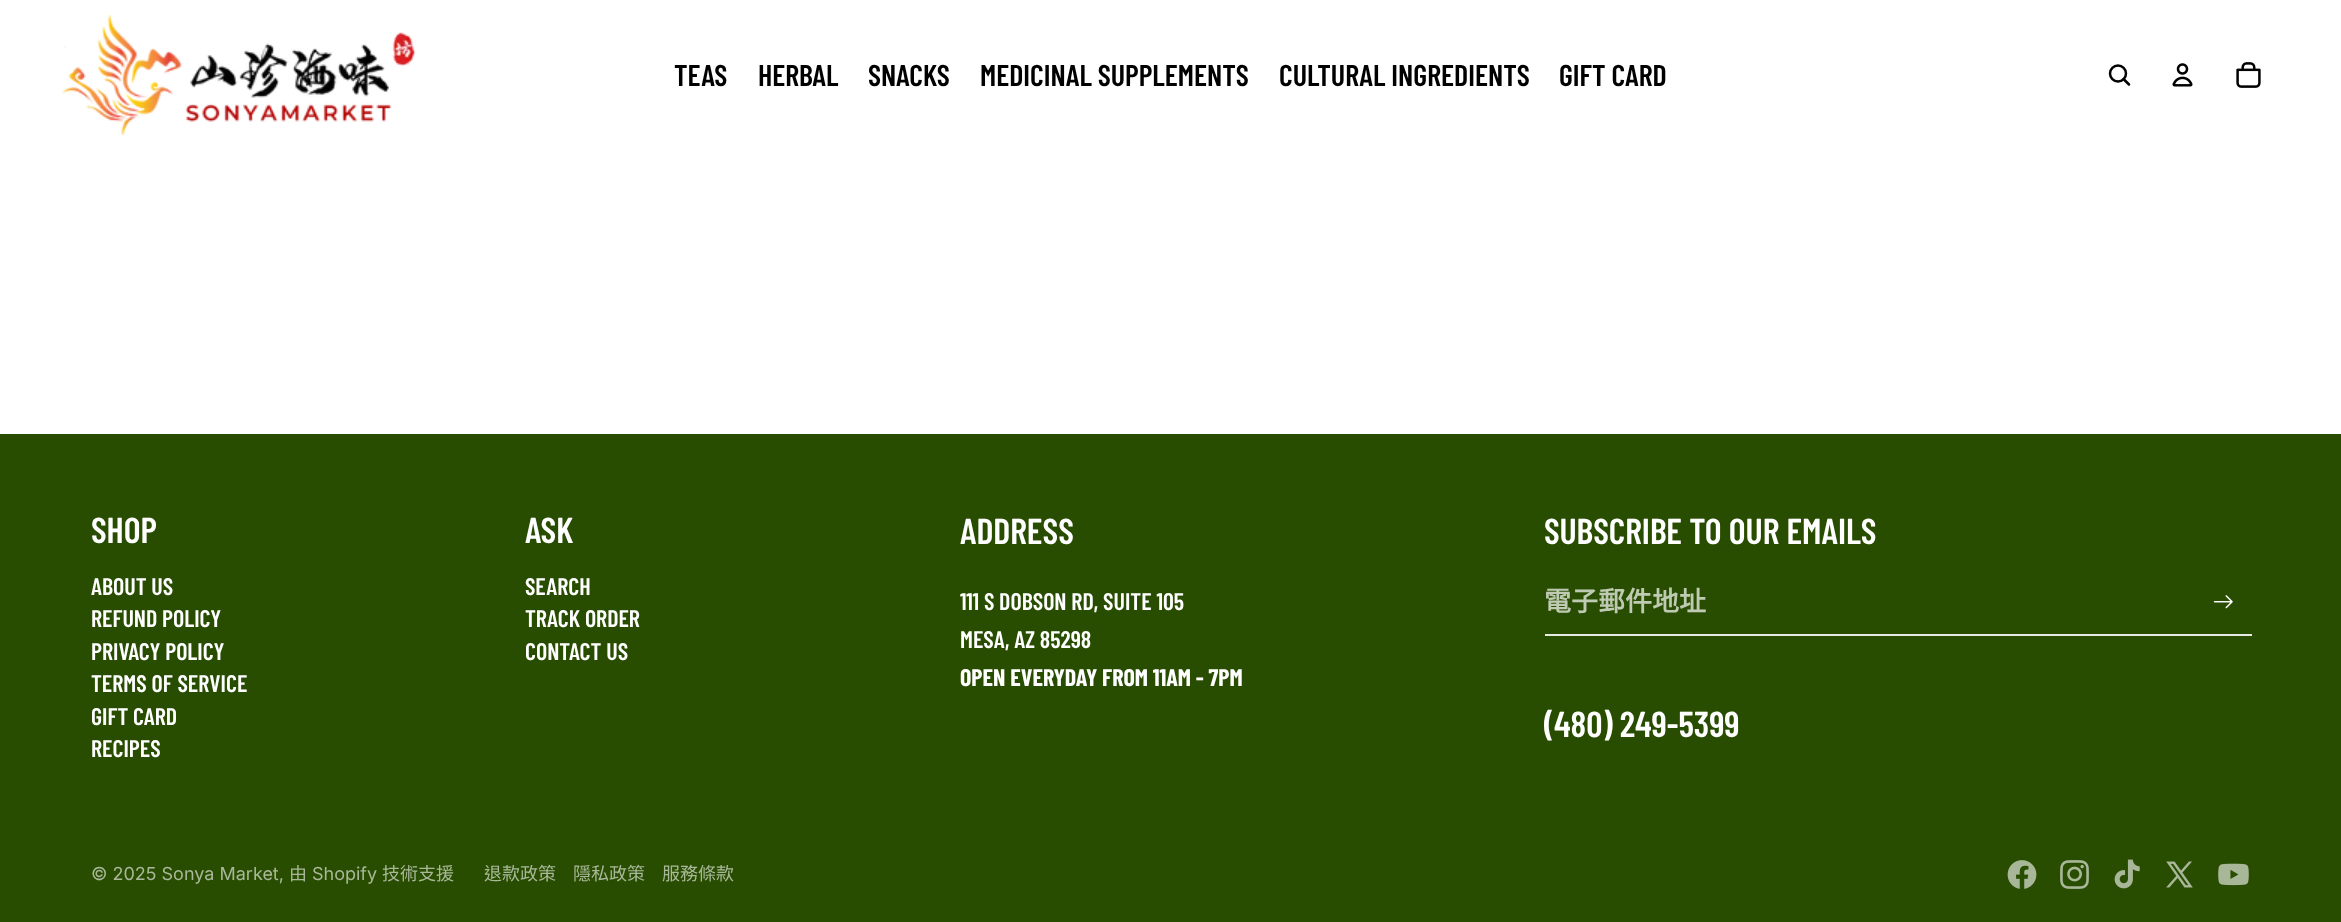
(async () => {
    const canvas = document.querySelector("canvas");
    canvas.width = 2341;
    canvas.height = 922;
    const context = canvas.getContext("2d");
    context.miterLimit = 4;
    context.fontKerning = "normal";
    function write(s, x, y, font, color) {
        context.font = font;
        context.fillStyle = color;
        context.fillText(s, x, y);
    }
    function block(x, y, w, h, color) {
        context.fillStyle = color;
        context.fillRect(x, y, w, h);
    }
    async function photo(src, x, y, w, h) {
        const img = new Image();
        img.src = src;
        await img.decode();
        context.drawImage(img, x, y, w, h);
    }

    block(0, 0, 2341, 922, "rgb(255, 255, 255)");
    await photo("media/1.png", 61, 15, 355, 120);
    write("TEAS", 674, 86, "600 30px Barlow Condensed", "rgb(0, 0, 0)");
    write("HERBAL", 758, 86, "600 30px Barlow Condensed", "rgb(0, 0, 0)");
    write("SNACKS", 868, 86, "600 30px Barlow Condensed", "rgb(0, 0, 0)");
    write("MEDICINAL SUPPLEMENTS", 980, 86, "600 30px Barlow Condensed", "rgb(0, 0, 0)");
    write("CULTURAL INGREDIENTS", 1279, 86, "600 30px Barlow Condensed", "rgb(0, 0, 0)");
    write("GIFT CARD", 1559, 86, "600 30px Barlow Condensed", "rgb(0, 0, 0)");
    context.beginPath();
    context.arc(2118, 73.5, 8, 0, Math.PI * 2);
    context.strokeStyle = "rgb(0, 0, 0)";
    context.lineWidth = 2.5;
    context.stroke();
    context.beginPath();
    context.moveTo(2123.5, 79);
    context.lineTo(2129, 84.5);
    context.lineCap = "round";
    context.lineJoin = "round";
    context.stroke();
    await photo("media/2.png", 2172, 63, 21, 24);
    await photo("media/3.png", 2236, 62, 25, 26);
    block(0, 434, 2341, 488, "rgb(40, 77, 0)");
    write("SHOP", 91, 543, "600 36px Barlow Condensed", "rgb(255, 255, 255)");
    write("ABOUT US", 91, 595, "600 24px Barlow Condensed", "rgb(255, 255, 255)");
    write("REFUND POLICY", 91, 627, "600 24px Barlow Condensed", "rgb(255, 255, 255)");
    write("PRIVACY POLICY", 91, 660, "600 24px Barlow Condensed", "rgb(255, 255, 255)");
    write("TERMS OF SERVICE", 91, 692, "600 24px Barlow Condensed", "rgb(255, 255, 255)");
    write("GIFT CARD", 91, 725, "600 24px Barlow Condensed", "rgb(255, 255, 255)");
    write("RECIPES", 91, 757, "600 24px Barlow Condensed", "rgb(255, 255, 255)");
    write("ASK", 525, 543, "600 36px Barlow Condensed", "rgb(255, 255, 255)");
    write("SEARCH", 525, 595, "600 24px Barlow Condensed", "rgb(255, 255, 255)");
    write("TRACK ORDER", 525, 627, "600 24px Barlow Condensed", "rgb(255, 255, 255)");
    write("CONTACT US", 525, 660, "600 24px Barlow Condensed", "rgb(255, 255, 255)");
    write("ADDRESS", 960, 544, "600 36px Barlow Condensed", "rgb(255, 255, 255)");
    write("111 S DOBSON RD, SUITE 105", 960, 610, "600 24px Barlow Condensed", "rgb(255, 255, 255)");
    write("MESA, AZ 85298", 960, 648, "600 24px Barlow Condensed", "rgb(255, 255, 255)");
    write("OPEN EVERYDAY FROM 11AM - 7PM", 960, 686, "bold 24px Barlow Condensed", "rgb(255, 255, 255)");
    write("SUBSCRIBE TO OUR EMAILS", 1544, 544, "600 36px Barlow Condensed", "rgb(255, 255, 255)");
    context.fillStyle = "rgb(231, 235, 227)";
    context.beginPath();
    context.moveTo(1545, 634);
    context.lineTo(1545, 636);
    context.lineTo(2252, 636);
    context.lineTo(2252, 570);
    context.lineTo(2252, 634);
    context.closePath();
    context.fill();
    write("電子郵件地址", 1544, 611, "bold 27px Noto Sans CJK TC", "rgb(191, 202, 179)");
    await photo("media/4.png", 2213, 595, 20, 14);
    write("(480) 249-5399", 1544, 737, "600 36px Barlow Condensed", "rgb(255, 255, 255)");
    write("© 2025 Sonya Market,", 91, 880, "18px Inter", "rgb(169, 184, 153)");
    write("由", 289, 880, "18px Noto Sans CJK TC", "rgb(169, 184, 153)");
    write("Shopify", 312, 880, "18px Inter", "rgb(169, 184, 153)");
    write("技術支援", 382, 880, "18px Noto Sans CJK TC", "rgb(169, 184, 153)");
    write("退款政策", 484, 880, "18px Noto Sans CJK TC", "rgb(169, 184, 153)");
    write("隱私政策", 573, 880, "18px Noto Sans CJK TC", "rgb(169, 184, 153)");
    write("服務條款", 662, 880, "18px Noto Sans CJK TC", "rgb(169, 184, 153)");
    await photo("media/5.png", 2007, 860, 30, 29);
    await photo("media/6.png", 2060, 860, 29, 29);
    await photo("media/7.png", 2114, 859, 26, 30);
    await photo("media/8.png", 2166, 861, 27, 27);
    await photo("media/9.png", 2218, 863, 31, 23);
})();
